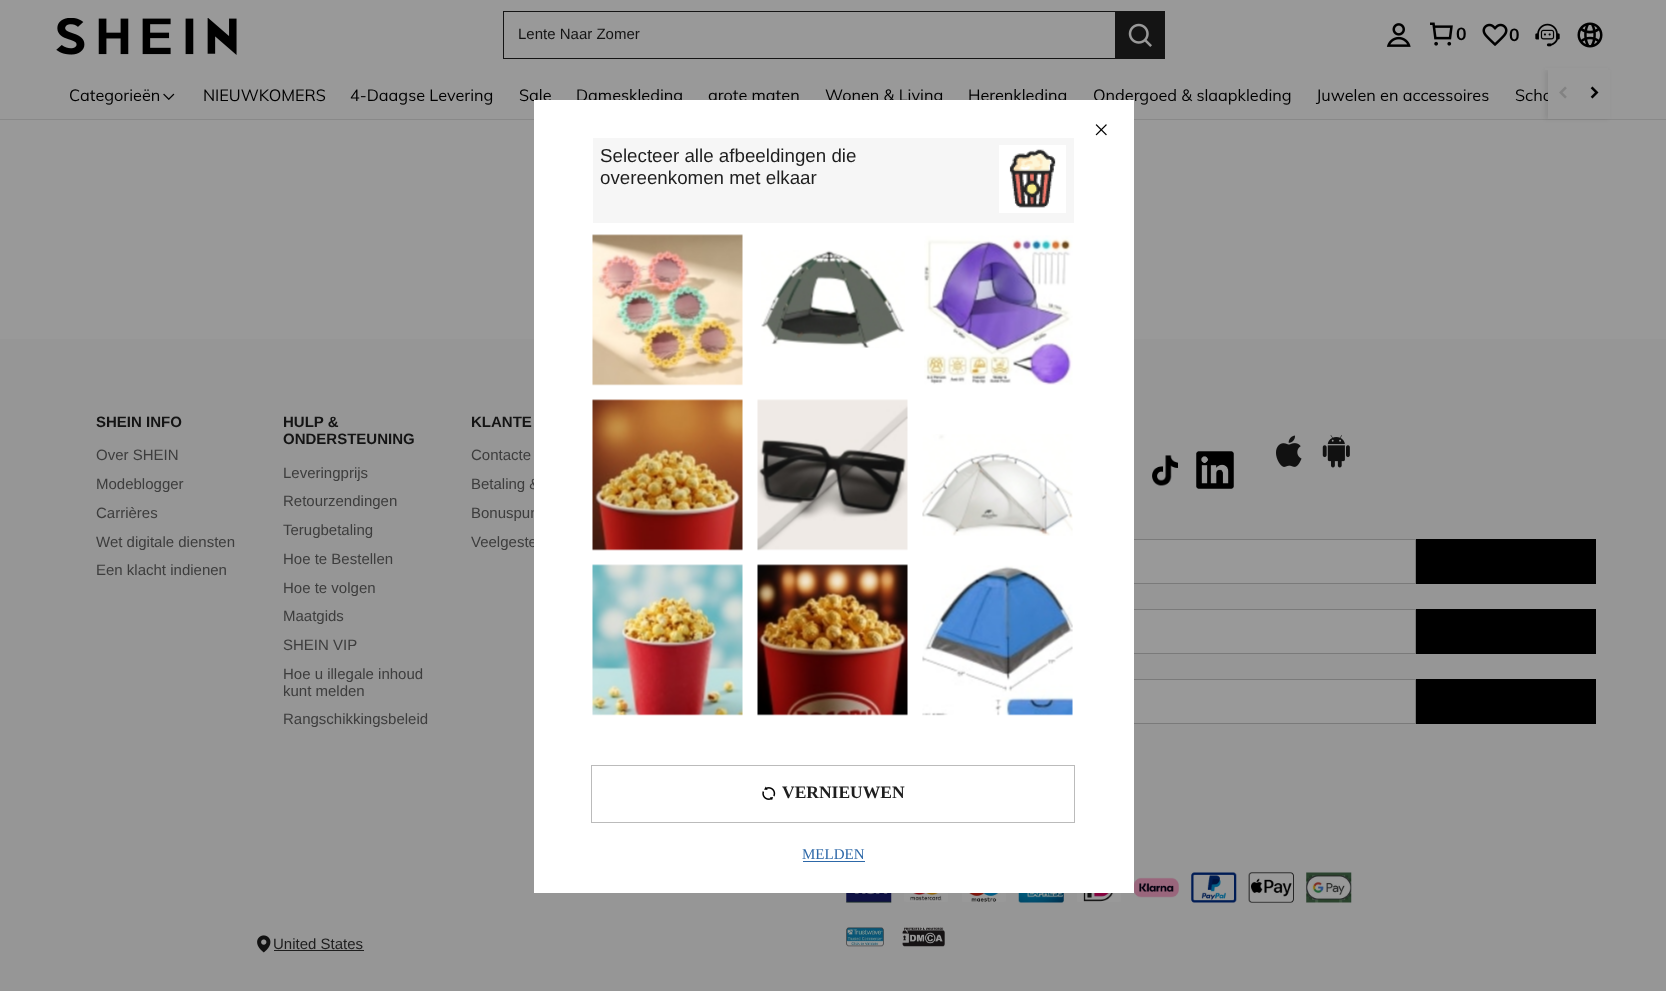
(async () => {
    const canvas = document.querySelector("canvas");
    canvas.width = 1666;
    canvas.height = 991;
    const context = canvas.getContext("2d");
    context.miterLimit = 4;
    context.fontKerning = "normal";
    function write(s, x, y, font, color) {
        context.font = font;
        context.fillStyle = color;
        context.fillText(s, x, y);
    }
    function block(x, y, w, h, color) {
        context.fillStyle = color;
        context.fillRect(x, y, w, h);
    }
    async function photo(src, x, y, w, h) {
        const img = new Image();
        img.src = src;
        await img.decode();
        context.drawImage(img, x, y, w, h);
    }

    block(0, 0, 1666, 991, "rgb(153, 153, 153)");
    block(0, 119, 1666, 1, "rgb(137, 137, 137)");
    context.fillStyle = "rgba(0, 0, 0, 0.08)";
    context.filter = "blur(2px)";
    context.beginPath();
    context.rect(1545, 70, 63, 49);
    context.fill();
    context.filter = "none";
    block(1545, 68, 63, 2, "rgb(153, 153, 153)");
    await photo("media/1.png", 56, 18, 181, 37);
    block(503, 11, 612, 1, "rgb(20, 20, 20)");
    block(503, 58, 612, 1, "rgb(20, 20, 20)");
    block(503, 11, 1, 48, "rgb(20, 20, 20)");
    write("Lente Naar Zomer", 518, 39, "15px Liberation Sans", "rgb(20, 20, 20)");
    block(1115, 11, 50, 48, "rgb(20, 20, 20)");
    await photo("media/2.png", 1128, 23, 24, 24);
    await photo("media/3.png", 1386, 23, 25, 24);
    await photo("media/4.png", 1430, 22, 23, 24);
    write("0", 1456, 40, "bold 17.5px Muli", "rgb(0, 0, 0)");
    await photo("media/5.png", 1482, 23, 26, 23);
    write("0", 1509, 41, "bold 17.5px Muli", "rgb(0, 0, 0)");
    await photo("media/6.png", 1535, 23, 25, 24);
    await photo("media/7.png", 1577, 22, 26, 26);
    write("Categorieën", 69, 101, "16.25px Muli", "rgb(0, 0, 0)");
    await photo("media/8.png", 163, 93, 12, 7);
    write("NIEUWKOMERS", 203, 101, "16.25px Muli", "rgb(0, 0, 0)");
    write("4-Daagse Levering", 350, 101, "16.25px Muli", "rgb(0, 0, 0)");
    write("Sale", 519, 101, "16.25px Muli", "rgb(0, 0, 0)");
    write("Dameskleding", 576, 101, "16.25px Muli", "rgb(0, 0, 0)");
    write("grote maten", 708, 101, "16.25px Muli", "rgb(0, 0, 0)");
    write("Wonen & Living", 825, 101, "16.25px Muli", "rgb(0, 0, 0)");
    write("Herenkleding", 968, 101, "16.25px Muli", "rgb(0, 0, 0)");
    write("Ondergoed & slaapkleding", 1093, 101, "16.25px Muli", "rgb(0, 0, 0)");
    write("Juwelen en accessoires", 1316, 101, "16.25px Muli", "rgb(0, 0, 0)");
    write("Scho", 1515, 101, "16.25px Muli", "rgb(0, 0, 0)");
    block(1548, 70, 62, 49, "rgb(153, 153, 153)");
    await photo("media/9.png", 1559, 86, 8, 13);
    await photo("media/10.png", 1590, 86, 9, 13);
    block(0, 339, 1666, 652, "rgb(150, 150, 150)");
    write("SHEIN INFO", 96, 427, "bold 15px Liberation Sans", "rgb(20, 20, 20)");
    write("Over SHEIN", 96, 460, "15px Liberation Sans", "rgb(61, 61, 61)");
    write("Modeblogger", 96, 489, "15px Liberation Sans", "rgb(61, 61, 61)");
    write("Carrières", 96, 518, "15px Liberation Sans", "rgb(61, 61, 61)");
    write("Wet digitale diensten", 96, 547, "15px Liberation Sans", "rgb(61, 61, 61)");
    write("Een klacht indienen", 96, 575, "15px Liberation Sans", "rgb(61, 61, 61)");
    write("HULP &", 283, 427, "bold 15px Liberation Sans", "rgb(20, 20, 20)");
    write("ONDERSTEUNING", 283, 444, "bold 15px Liberation Sans", "rgb(20, 20, 20)");
    write("Leveringprijs", 283, 478, "15px Liberation Sans", "rgb(61, 61, 61)");
    write("Retourzendingen", 283, 506, "15px Liberation Sans", "rgb(61, 61, 61)");
    write("Terugbetaling", 283, 535, "15px Liberation Sans", "rgb(61, 61, 61)");
    write("Hoe te Bestellen", 283, 564, "15px Liberation Sans", "rgb(61, 61, 61)");
    write("Hoe te volgen", 283, 593, "15px Liberation Sans", "rgb(61, 61, 61)");
    write("Maatgids", 283, 621, "15px Liberation Sans", "rgb(61, 61, 61)");
    write("SHEIN VIP", 283, 650, "15px Liberation Sans", "rgb(61, 61, 61)");
    write("Hoe u illegale inhoud", 283, 679, "15px Liberation Sans", "rgb(61, 61, 61)");
    write("kunt melden", 283, 696, "15px Liberation Sans", "rgb(61, 61, 61)");
    write("Rangschikkingsbeleid", 283, 724, "15px Liberation Sans", "rgb(61, 61, 61)");
    write("KLANTE", 471, 427, "bold 15px Liberation Sans", "rgb(20, 20, 20)");
    write("Contacte", 471, 460, "15px Liberation Sans", "rgb(61, 61, 61)");
    write("Betaling &", 471, 489, "15px Liberation Sans", "rgb(61, 61, 61)");
    write("Bonuspun", 471, 518, "15px Liberation Sans", "rgb(61, 61, 61)");
    write("Veelgeste", 471, 547, "15px Liberation Sans", "rgb(61, 61, 61)");
    await photo("media/11.png", 1152, 455, 26, 31);
    await photo("media/12.png", 1196, 451, 38, 38);
    await photo("media/13.png", 1276, 435, 26, 32);
    await photo("media/14.png", 1322, 435, 28, 33);
    block(1134, 540, 281, 43, "rgb(153, 153, 153)");
    context.strokeStyle = "rgb(122, 122, 122)";
    context.strokeRect(846.5, 539.5, 569, 44);
    block(1416, 539, 180, 45, "rgb(0, 0, 0)");
    block(1134, 610, 281, 43, "rgb(153, 153, 153)");
    context.strokeRect(946.5, 609.5, 469, 44);
    block(1416, 609, 180, 45, "rgb(0, 0, 0)");
    block(1134, 680, 281, 43, "rgb(153, 153, 153)");
    context.strokeRect(946.5, 679.5, 469, 44);
    block(1416, 679, 180, 45, "rgb(0, 0, 0)");
    await photo("media/15.png", 846, 893, 46, 10);
    await photo("media/16.png", 904, 893, 44, 9);
    await photo("media/17.png", 962, 893, 44, 9);
    await photo("media/18.png", 1018, 893, 46, 10);
    await photo("media/19.png", 1077, 893, 44, 9);
    await photo("media/20.png", 1134, 877, 45, 21);
    await photo("media/21.png", 1191, 872, 46, 31);
    await photo("media/22.png", 1248, 872, 46, 31);
    await photo("media/23.png", 1306, 872, 46, 31);
    await photo("media/24.png", 257, 935, 14, 18);
    write("United States", 273, 949, "15px Liberation Sans", "rgb(30, 30, 30)");
    block(274, 950, 90, 1, "rgb(30, 30, 30)");
    await photo("media/25.png", 846, 927, 38, 20);
    await photo("media/26.png", 902, 927, 43, 20);
    context.fillStyle = "rgba(0, 0, 0, 0.3)";
    context.filter = "blur(0.5px)";
    context.beginPath();
    context.rect(534, 100, 600, 793);
    context.fill();
    context.filter = "none";
    block(534, 100, 600, 793, "rgb(255, 255, 255)");
    await photo("media/27.png", 1095, 124, 12, 12);
    block(593, 138, 481, 85, "rgb(246, 246, 246)");
    write("Selecteer alle afbeeldingen die", 600, 162, "18.75px Liberation Sans", "rgb(30, 30, 30)");
    write("overeenkomen met elkaar", 600, 184, "18.75px Liberation Sans", "rgb(30, 30, 30)");
    block(999, 145, 67, 68, "rgb(255, 255, 255)");
    await photo("media/28.png", 1009, 149, 47, 59);
    await photo("media/29.png", 592, 234, 151, 152);
    await photo("media/30.png", 761, 250, 144, 98);
    await photo("media/31.png", 924, 235, 149, 150);
    await photo("media/32.png", 592, 399, 151, 152);
    await photo("media/33.png", 757, 399, 151, 152);
    await photo("media/34.png", 922, 434, 151, 102);
    await photo("media/35.png", 592, 564, 151, 152);
    await photo("media/36.png", 757, 564, 151, 152);
    await photo("media/37.png", 922, 565, 151, 151);
    context.strokeStyle = "rgb(187, 187, 187)";
    context.strokeRect(591.5, 765.5, 483, 57);
    await photo("media/38.png", 762, 786, 14, 14);
    write("VERNIEUWEN", 782, 798, "bold 17.5px Liberation Serif", "rgb(30, 30, 30)");
    write("MELDEN", 802, 859, "15px Liberation Serif", "rgb(45, 104, 168)");
    block(803, 861, 62, 1, "rgb(45, 104, 168)");
})();
